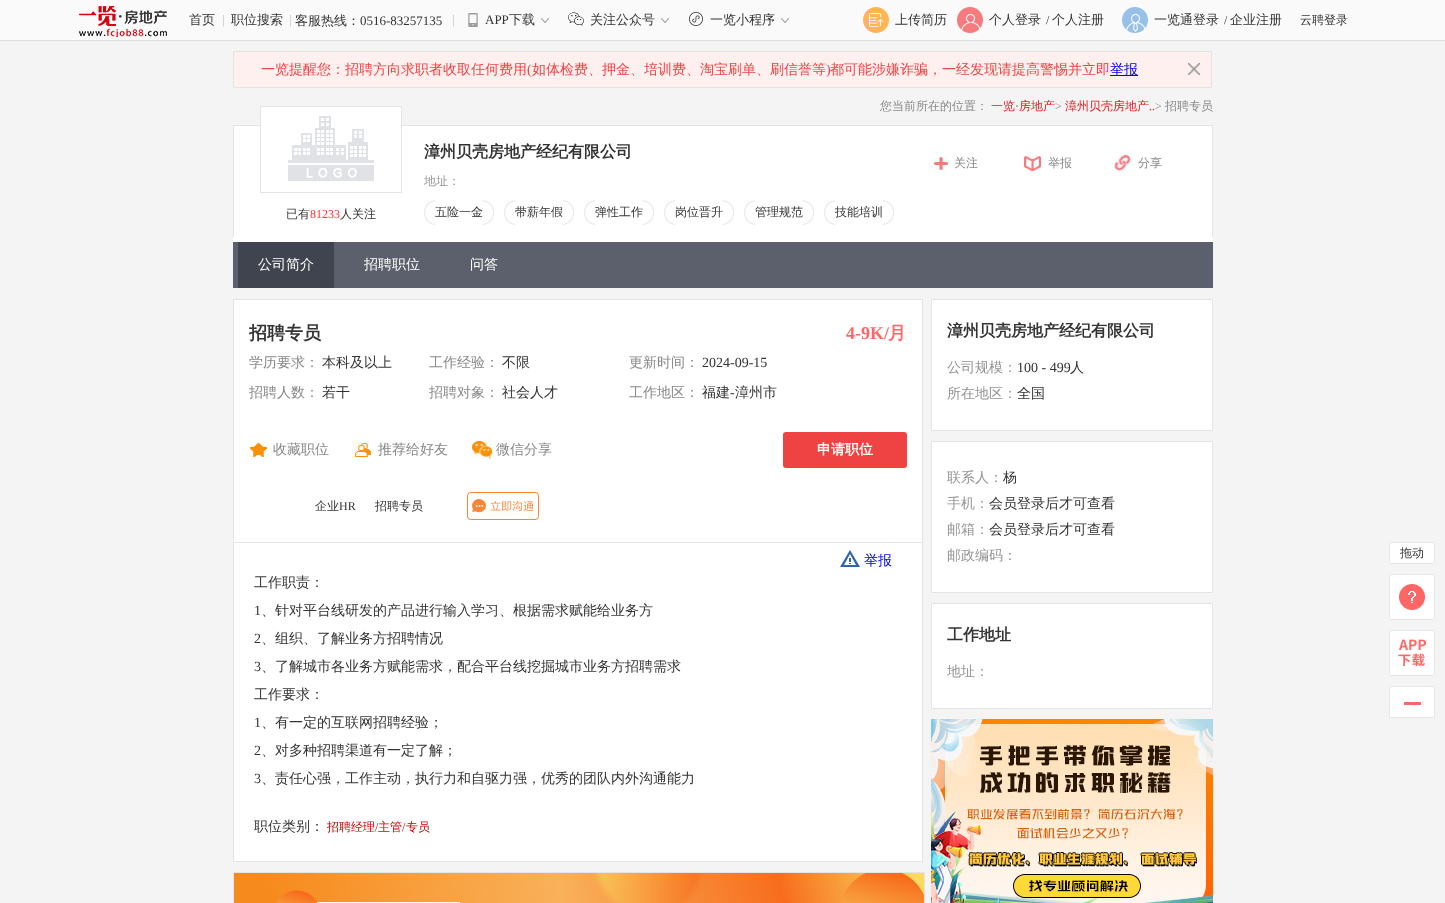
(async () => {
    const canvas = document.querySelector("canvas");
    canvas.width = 1445;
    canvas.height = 903;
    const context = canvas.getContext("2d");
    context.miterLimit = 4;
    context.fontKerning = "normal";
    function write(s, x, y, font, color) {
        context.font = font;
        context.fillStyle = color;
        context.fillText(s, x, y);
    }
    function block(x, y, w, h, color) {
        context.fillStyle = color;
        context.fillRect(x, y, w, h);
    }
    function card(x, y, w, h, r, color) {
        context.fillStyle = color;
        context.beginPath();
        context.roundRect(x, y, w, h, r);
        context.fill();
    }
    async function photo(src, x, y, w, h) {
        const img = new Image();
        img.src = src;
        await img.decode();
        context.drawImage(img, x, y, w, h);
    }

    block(0, 0, 1445, 903, "rgb(244, 244, 244)");
    block(0, 0, 1445, 40, "rgb(250, 250, 250)");
    block(0, 40, 1445, 1, "rgb(223, 223, 223)");
    await photo("media/1.png", 79, 6, 88, 31);
    write("首页", 189, 24, "500 13px WenQuanYi Zen Hei", "rgb(51, 51, 51)");
    write("|", 222, 24, "13px Liberation Serif", "rgb(208, 188, 197)");
    write("职位搜索", 231, 24, "500 13px WenQuanYi Zen Hei", "rgb(51, 51, 51)");
    write("|", 289, 24, "13px Liberation Serif", "rgb(208, 188, 197)");
    write("客服热线：", 295, 25, "500 13px WenQuanYi Zen Hei", "rgb(51, 51, 51)");
    write("0516-83257135", 360, 25, "13px Liberation Serif", "rgb(51, 51, 51)");
    write("|", 452, 24, "13px Liberation Serif", "rgb(208, 188, 197)");
    await photo("media/2.png", 468, 13, 10, 14);
    write("APP", 485, 24, "13px Liberation Serif", "rgb(51, 51, 51)");
    write("下载", 509, 24, "500 13px WenQuanYi Zen Hei", "rgb(51, 51, 51)");
    await photo("media/3.png", 541, 18, 8, 5);
    await photo("media/4.png", 568, 12, 16, 14);
    write("关注公众号", 590, 24, "500 13px WenQuanYi Zen Hei", "rgb(51, 51, 51)");
    await photo("media/3.png", 661, 18, 8, 5);
    await photo("media/5.png", 689, 12, 14, 14);
    write("一览小程序", 710, 24, "500 13px WenQuanYi Zen Hei", "rgb(51, 51, 51)");
    await photo("media/3.png", 781, 18, 8, 5);
    await photo("media/6.png", 863, 7, 26, 26);
    write("上传简历", 895, 24, "500 13px WenQuanYi Zen Hei", "rgb(51, 51, 51)");
    await photo("media/7.png", 957, 7, 26, 26);
    write("个人登录", 989, 24, "500 13px WenQuanYi Zen Hei", "rgb(51, 51, 51)");
    write("/", 1046, 24, "12px Liberation Serif", "rgb(51, 51, 51)");
    write("个人注册", 1052, 24, "500 13px WenQuanYi Zen Hei", "rgb(51, 51, 51)");
    await photo("media/8.png", 1122, 7, 26, 26);
    write("一览通登录", 1154, 24, "500 13px WenQuanYi Zen Hei", "rgb(51, 51, 51)");
    write("/", 1224, 24, "12px Liberation Serif", "rgb(51, 51, 51)");
    write("企业注册", 1230, 24, "500 13px WenQuanYi Zen Hei", "rgb(51, 51, 51)");
    write("云聘登录", 1300, 24, "500 12px WenQuanYi Zen Hei", "rgb(51, 51, 51)");
    context.fillStyle = "rgb(255, 240, 240)";
    context.beginPath();
    context.rect(233.5, 51.5, 978, 36);
    context.fill();
    context.strokeStyle = "rgb(228, 228, 228)";
    context.stroke();
    write("一览提醒您：招聘方向求职者收取任何费用", 261, 74, "500 14px WenQuanYi Zen Hei", "rgb(239, 67, 67)");
    write("(", 527, 74, "14px Liberation Serif", "rgb(239, 67, 67)");
    write("如体检费、押金、培训费、淘宝刷单、刷信誉等", 532, 74, "500 14px WenQuanYi Zen Hei", "rgb(239, 67, 67)");
    write(")", 826, 74, "14px Liberation Serif", "rgb(239, 67, 67)");
    write("都可能涉嫌诈骗，一经发现请提高警惕并立即", 830, 74, "500 14px WenQuanYi Zen Hei", "rgb(239, 67, 67)");
    block(1110, 75, 28, 1, "rgb(0, 0, 238)");
    write("举报", 1110, 74, "500 14px WenQuanYi Zen Hei", "rgb(0, 0, 238)");
    await photo("media/9.png", 1188, 63, 12, 12);
    block(233, 126, 980, 116, "rgb(255, 255, 255)");
    write("您当前所在的位置：", 880, 110, "500 12px WenQuanYi Zen Hei", "rgb(136, 136, 136)");
    write("一览", 991, 110, "500 12px WenQuanYi Zen Hei", "rgb(226, 23, 26)");
    write("·", 1015, 110, "12px Liberation Serif", "rgb(226, 23, 26)");
    write("房地产", 1019, 110, "500 12px WenQuanYi Zen Hei", "rgb(226, 23, 26)");
    write(">", 1055, 110, "12px Liberation Serif", "rgb(136, 136, 136)");
    write("漳州贝壳房地产", 1065, 110, "500 12px WenQuanYi Zen Hei", "rgb(226, 23, 26)");
    write(">", 1155, 110, "12px Liberation Serif", "rgb(136, 136, 136)");
    write("招聘专员", 1165, 110, "500 12px WenQuanYi Zen Hei", "rgb(136, 136, 136)");
    write("..", 1149, 110, "12px Liberation Serif", "rgb(226, 23, 26)");
    block(233, 125, 980, 1, "rgb(228, 228, 228)");
    block(1212, 125, 1, 112, "rgb(228, 228, 228)");
    block(233, 125, 1, 112, "rgb(228, 228, 228)");
    write("漳州贝壳房地产经纪有限公司", 424, 157, "bold 16px WenQuanYi Zen Hei", "rgb(51, 51, 51)");
    write("地址：", 424, 185, "500 12px WenQuanYi Zen Hei", "rgb(148, 148, 148)");
    await photo("media/10.png", 424, 200, 11, 25);
    write("五险一金", 435, 216, "500 12px WenQuanYi Zen Hei", "rgb(51, 51, 51)");
    await photo("media/11.png", 483, 200, 11, 25);
    await photo("media/10.png", 504, 200, 11, 25);
    write("带薪年假", 515, 216, "500 12px WenQuanYi Zen Hei", "rgb(51, 51, 51)");
    await photo("media/11.png", 563, 200, 11, 25);
    await photo("media/10.png", 584, 200, 11, 25);
    write("弹性工作", 595, 216, "500 12px WenQuanYi Zen Hei", "rgb(51, 51, 51)");
    await photo("media/11.png", 643, 200, 11, 25);
    await photo("media/10.png", 664, 200, 11, 25);
    write("岗位晋升", 675, 216, "500 12px WenQuanYi Zen Hei", "rgb(51, 51, 51)");
    await photo("media/11.png", 723, 200, 11, 25);
    await photo("media/10.png", 744, 200, 11, 25);
    write("管理规范", 755, 216, "500 12px WenQuanYi Zen Hei", "rgb(51, 51, 51)");
    await photo("media/11.png", 803, 200, 11, 25);
    await photo("media/10.png", 824, 200, 11, 25);
    context.save();
    context.beginPath();
    context.rect(835, 200, 48, 25);
    context.clip();
    write("技能培训", 835, 216, "500 12px WenQuanYi Zen Hei", "rgb(51, 51, 51)");
    context.restore();
    await photo("media/11.png", 883, 200, 11, 25);
    await photo("media/12.png", 934, 157, 14, 13);
    write("关注", 954, 167, "500 12px WenQuanYi Zen Hei", "rgb(136, 136, 136)");
    await photo("media/13.png", 1024, 156, 17, 15);
    write("举报", 1048, 167, "500 12px WenQuanYi Zen Hei", "rgb(136, 136, 136)");
    await photo("media/14.png", 1114, 155, 17, 16);
    write("分享", 1138, 167, "500 12px WenQuanYi Zen Hei", "rgb(136, 136, 136)");
    context.strokeRect(260.5, 106.5, 141, 86);
    await photo("media/15.png", 261, 107, 140, 74);
    write("已有", 286, 218, "500 12px WenQuanYi Zen Hei", "rgb(51, 51, 51)");
    write("81233", 310, 218, "12px Liberation Serif", "rgb(255, 51, 51)");
    write("人关注", 340, 218, "500 12px WenQuanYi Zen Hei", "rgb(51, 51, 51)");
    block(233, 242, 980, 46, "rgb(91, 96, 108)");
    block(238, 242, 96, 46, "rgb(64, 68, 78)");
    write("公司简介", 258, 269, "500 14px WenQuanYi Zen Hei", "rgb(255, 255, 255)");
    write("招聘职位", 364, 269, "500 14px WenQuanYi Zen Hei", "rgb(255, 255, 255)");
    write("问答", 470, 269, "500 14px WenQuanYi Zen Hei", "rgb(255, 255, 255)");
    context.beginPath();
    context.rect(233.5, 299.5, 689, 243);
    context.fill();
    context.stroke();
    write("招聘专员", 249, 339, "bold 18px WenQuanYi Zen Hei", "rgb(51, 51, 51)");
    write("4-9K/", 846, 339, "bold 18px Liberation Serif", "rgb(255, 102, 102)");
    write("月", 888, 339, "bold 18px WenQuanYi Zen Hei", "rgb(255, 102, 102)");
    write("学历要求：", 249, 367, "500 14px WenQuanYi Zen Hei", "rgb(136, 136, 136)");
    write("本科及以上", 322, 367, "500 14px WenQuanYi Zen Hei", "rgb(51, 51, 51)");
    write("工作经验：", 429, 367, "500 14px WenQuanYi Zen Hei", "rgb(136, 136, 136)");
    write("不限", 502, 367, "500 14px WenQuanYi Zen Hei", "rgb(51, 51, 51)");
    write("更新时间：", 629, 367, "500 14px WenQuanYi Zen Hei", "rgb(136, 136, 136)");
    write("2024-09-15", 702, 367, "14px Liberation Serif", "rgb(51, 51, 51)");
    context.save();
    context.beginPath();
    context.rect(249, 378, 180, 30);
    context.clip();
    write("招聘人数：", 249, 397, "500 14px WenQuanYi Zen Hei", "rgb(136, 136, 136)");
    context.restore();
    write("若干", 322, 397, "500 14px WenQuanYi Zen Hei", "rgb(51, 51, 51)");
    context.save();
    context.beginPath();
    context.rect(429, 378, 200, 30);
    context.clip();
    write("招聘对象：", 429, 397, "500 14px WenQuanYi Zen Hei", "rgb(136, 136, 136)");
    context.restore();
    write("社会人才", 502, 397, "500 14px WenQuanYi Zen Hei", "rgb(51, 51, 51)");
    write("工作地区：", 629, 397, "500 14px WenQuanYi Zen Hei", "rgb(136, 136, 136)");
    write("福建", 702, 397, "500 14px WenQuanYi Zen Hei", "rgb(51, 51, 51)");
    write("-", 730, 397, "14px Liberation Serif", "rgb(51, 51, 51)");
    write("漳州市", 735, 397, "500 14px WenQuanYi Zen Hei", "rgb(51, 51, 51)");
    await photo("media/16.png", 249, 441, 20, 16);
    write("收藏职位", 273, 454, "500 14px WenQuanYi Zen Hei", "rgb(136, 136, 136)");
    await photo("media/17.png", 353, 441, 18, 16);
    write("推荐给好友", 378, 454, "500 14px WenQuanYi Zen Hei", "rgb(136, 136, 136)");
    await photo("media/18.png", 472, 441, 20, 18);
    write("微信分享", 496, 454, "500 14px WenQuanYi Zen Hei", "rgb(136, 136, 136)");
    card(783, 432, 124, 36, 3, "rgb(239, 67, 67)");
    write("申请职位", 817, 454, "bold 14px WenQuanYi Zen Hei", "rgb(255, 255, 255)");
    write("企业", 315, 510, "500 12px WenQuanYi Zen Hei", "rgb(51, 51, 51)");
    write("HR", 339, 510, "12px Liberation Serif", "rgb(51, 51, 51)");
    write("招聘专员", 375, 510, "500 12px WenQuanYi Zen Hei", "rgb(51, 51, 51)");
    await photo("media/19.png", 467, 492, 72, 28);
    block(234, 543, 688, 318, "rgb(255, 255, 255)");
    block(922, 543, 1, 319, "rgb(228, 228, 228)");
    block(233, 861, 690, 1, "rgb(228, 228, 228)");
    block(233, 543, 1, 319, "rgb(228, 228, 228)");
    await photo("media/20.png", 840, 550, 20, 17);
    write("举报", 864, 565, "500 14px WenQuanYi Zen Hei", "rgb(0, 0, 238)");
    write("工作职责：", 254, 587, "500 14px WenQuanYi Zen Hei", "rgb(51, 51, 51)");
    write("1", 254, 615, "14px Liberation Serif", "rgb(51, 51, 51)");
    write("、针对平台线研发的产品进行输入学习、根据需求赋能给业务方", 261, 615, "500 14px WenQuanYi Zen Hei", "rgb(51, 51, 51)");
    write("2", 254, 643, "14px Liberation Serif", "rgb(51, 51, 51)");
    write("、组织、了解业务方招聘情况", 261, 643, "500 14px WenQuanYi Zen Hei", "rgb(51, 51, 51)");
    write("3", 254, 671, "14px Liberation Serif", "rgb(51, 51, 51)");
    write("、了解城市各业务方赋能需求，配合平台线挖掘城市业务方招聘需求", 261, 671, "500 14px WenQuanYi Zen Hei", "rgb(51, 51, 51)");
    write("工作要求：", 254, 699, "500 14px WenQuanYi Zen Hei", "rgb(51, 51, 51)");
    write("1", 254, 727, "14px Liberation Serif", "rgb(51, 51, 51)");
    write("、有一定的互联网招聘经验；", 261, 727, "500 14px WenQuanYi Zen Hei", "rgb(51, 51, 51)");
    write("2", 254, 755, "14px Liberation Serif", "rgb(51, 51, 51)");
    write("、对多种招聘渠道有一定了解；", 261, 755, "500 14px WenQuanYi Zen Hei", "rgb(51, 51, 51)");
    write("3", 254, 783, "14px Liberation Serif", "rgb(51, 51, 51)");
    write("、责任心强，工作主动，执行力和自驱力强，优秀的团队内外沟通能力", 261, 783, "500 14px WenQuanYi Zen Hei", "rgb(51, 51, 51)");
    write("职位类别：", 254, 831, "500 14px WenQuanYi Zen Hei", "rgb(51, 51, 51)");
    write("招聘经理", 327, 831, "500 12px WenQuanYi Zen Hei", "rgb(204, 0, 0)");
    write("/", 375, 831, "12px Liberation Serif", "rgb(204, 0, 0)");
    write("主管", 378, 831, "500 12px WenQuanYi Zen Hei", "rgb(204, 0, 0)");
    write("/", 402, 831, "12px Liberation Serif", "rgb(204, 0, 0)");
    write("专员", 406, 831, "500 12px WenQuanYi Zen Hei", "rgb(204, 0, 0)");
    await photo("media/21.png", 233, 872, 692, 31);
    context.fillStyle = "rgb(255, 255, 255)";
    context.beginPath();
    context.rect(931.5, 299.5, 281, 131);
    context.fill();
    context.stroke();
    write("漳州贝壳房地产经纪有限公司", 947, 336, "bold 16px WenQuanYi Zen Hei", "rgb(51, 51, 51)");
    write("公司规模：", 947, 372, "500 14px WenQuanYi Zen Hei", "rgb(148, 148, 148)");
    write("100 - 499", 1017, 372, "14px Liberation Serif", "rgb(51, 51, 51)");
    write("人", 1070, 372, "500 14px WenQuanYi Zen Hei", "rgb(51, 51, 51)");
    write("所在地区：", 947, 398, "500 14px WenQuanYi Zen Hei", "rgb(148, 148, 148)");
    write("全国", 1017, 398, "500 14px WenQuanYi Zen Hei", "rgb(51, 51, 51)");
    context.fillStyle = "rgb(255, 255, 255)";
    context.beginPath();
    context.rect(931.5, 441.5, 281, 151);
    context.fill();
    context.stroke();
    context.save();
    context.beginPath();
    context.rect(947, 457, 250, 120);
    context.clip();
    write("联系人：", 947, 482, "500 14px WenQuanYi Zen Hei", "rgb(148, 148, 148)");
    context.restore();
    write("杨", 1003, 482, "500 14px WenQuanYi Zen Hei", "rgb(51, 51, 51)");
    write("手机：", 947, 508, "500 14px WenQuanYi Zen Hei", "rgb(148, 148, 148)");
    write("会员登录后才可查看", 989, 508, "500 14px WenQuanYi Zen Hei", "rgb(51, 51, 51)");
    write("邮箱：", 947, 534, "500 14px WenQuanYi Zen Hei", "rgb(148, 148, 148)");
    write("会员登录后才可查看", 989, 534, "500 14px WenQuanYi Zen Hei", "rgb(51, 51, 51)");
    write("邮政编码：", 947, 560, "500 14px WenQuanYi Zen Hei", "rgb(148, 148, 148)");
    context.fillStyle = "rgb(255, 255, 255)";
    context.beginPath();
    context.rect(931.5, 603.5, 281, 105);
    context.fill();
    context.stroke();
    write("工作地址", 947, 640, "bold 16px WenQuanYi Zen Hei", "rgb(51, 51, 51)");
    context.save();
    context.beginPath();
    context.rect(947, 651, 250, 42);
    context.clip();
    write("地址：", 947, 676, "500 14px WenQuanYi Zen Hei", "rgb(148, 148, 148)");
    context.restore();
    await photo("media/22.png", 931, 719, 282, 184);
    context.fillStyle = "rgb(255, 255, 255)";
    context.beginPath();
    context.roundRect(1389.5, 542.5, 45, 21, 1.5);
    context.fill();
    context.strokeStyle = "rgb(231, 231, 231)";
    context.stroke();
    write("拖动", 1400, 557, "500 12px WenQuanYi Zen Hei", "rgb(51, 51, 51)");
    context.fillStyle = "rgb(255, 255, 255)";
    context.beginPath();
    context.roundRect(1389.5, 574.5, 45, 45, 1.5);
    context.fill();
    context.stroke();
    await photo("media/23.png", 1399, 584, 26, 26);
    context.beginPath();
    context.roundRect(1389.5, 630.5, 45, 45, 1.5);
    context.fill();
    context.stroke();
    await photo("media/24.png", 1398, 639, 28, 28);
    context.beginPath();
    context.roundRect(1389.5, 686.5, 45, 31, 1.5);
    context.fill();
    context.stroke();
    block(1404, 702, 17, 3, "rgb(255, 102, 102)");
})();
